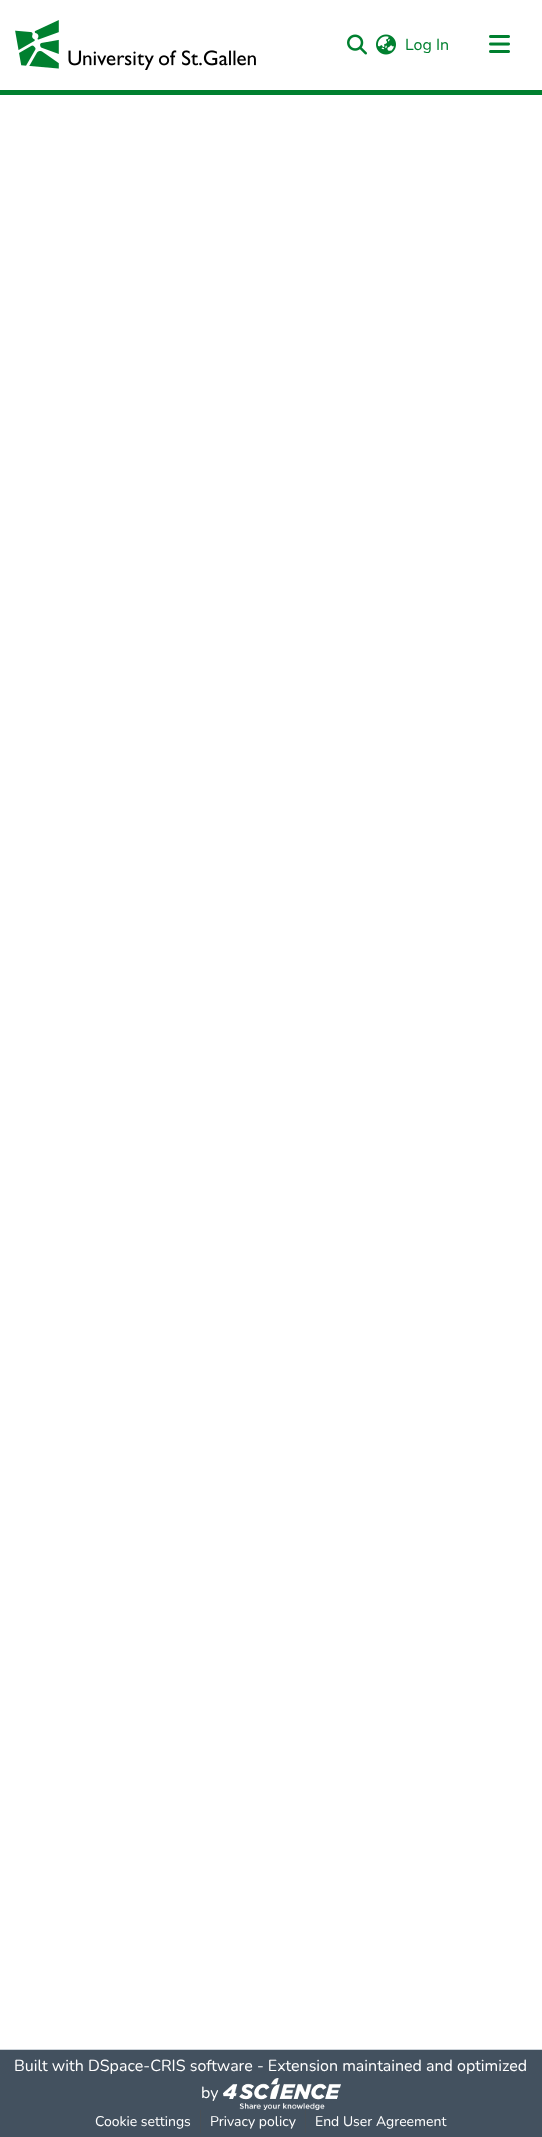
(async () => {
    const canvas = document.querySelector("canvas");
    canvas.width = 542;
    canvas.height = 2137;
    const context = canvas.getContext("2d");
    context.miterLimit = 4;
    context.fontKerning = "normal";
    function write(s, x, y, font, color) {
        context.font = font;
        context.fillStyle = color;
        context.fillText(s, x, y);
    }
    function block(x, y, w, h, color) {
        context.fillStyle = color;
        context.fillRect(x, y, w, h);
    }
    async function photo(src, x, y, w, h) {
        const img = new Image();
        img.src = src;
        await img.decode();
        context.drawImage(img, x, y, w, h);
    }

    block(0, 0, 542, 2137, "rgb(255, 255, 255)");
    block(0, 90, 542, 5, "rgb(0, 128, 47)");
    await photo("media/1.png", 15, 20, 241, 50);
    await photo("media/2.png", 347, 34, 20, 21);
    await photo("media/3.png", 376, 34, 20, 21);
    write("Log In", 405, 50, "16px Nunito", "rgb(0, 128, 47)");
    await photo("media/4.png", 489, 35, 21, 18);
    block(0, 2050, 542, 87, "rgb(67, 81, 95)");
    block(0, 2049, 542, 1, "rgb(206, 212, 218)");
    write("Built with DSpace-CRIS software - Extension maintained and optimized", 14, 2071, "16px Nunito", "rgb(255, 255, 255)");
    write("by", 201, 2098, "16px Nunito", "rgb(255, 255, 255)");
    await photo("media/5.png", 223, 2078, 118, 32);
    write("Cookie settings", 95, 2126, "14px Nunito", "rgb(255, 255, 255)");
    block(200, 2110, 1, 23, "rgb(73, 80, 87)");
    write("Privacy policy", 210, 2126, "14px Nunito", "rgb(255, 255, 255)");
    block(305, 2110, 1, 23, "rgb(73, 80, 87)");
    write("End User Agreement", 315, 2126, "14px Nunito", "rgb(255, 255, 255)");
})();
